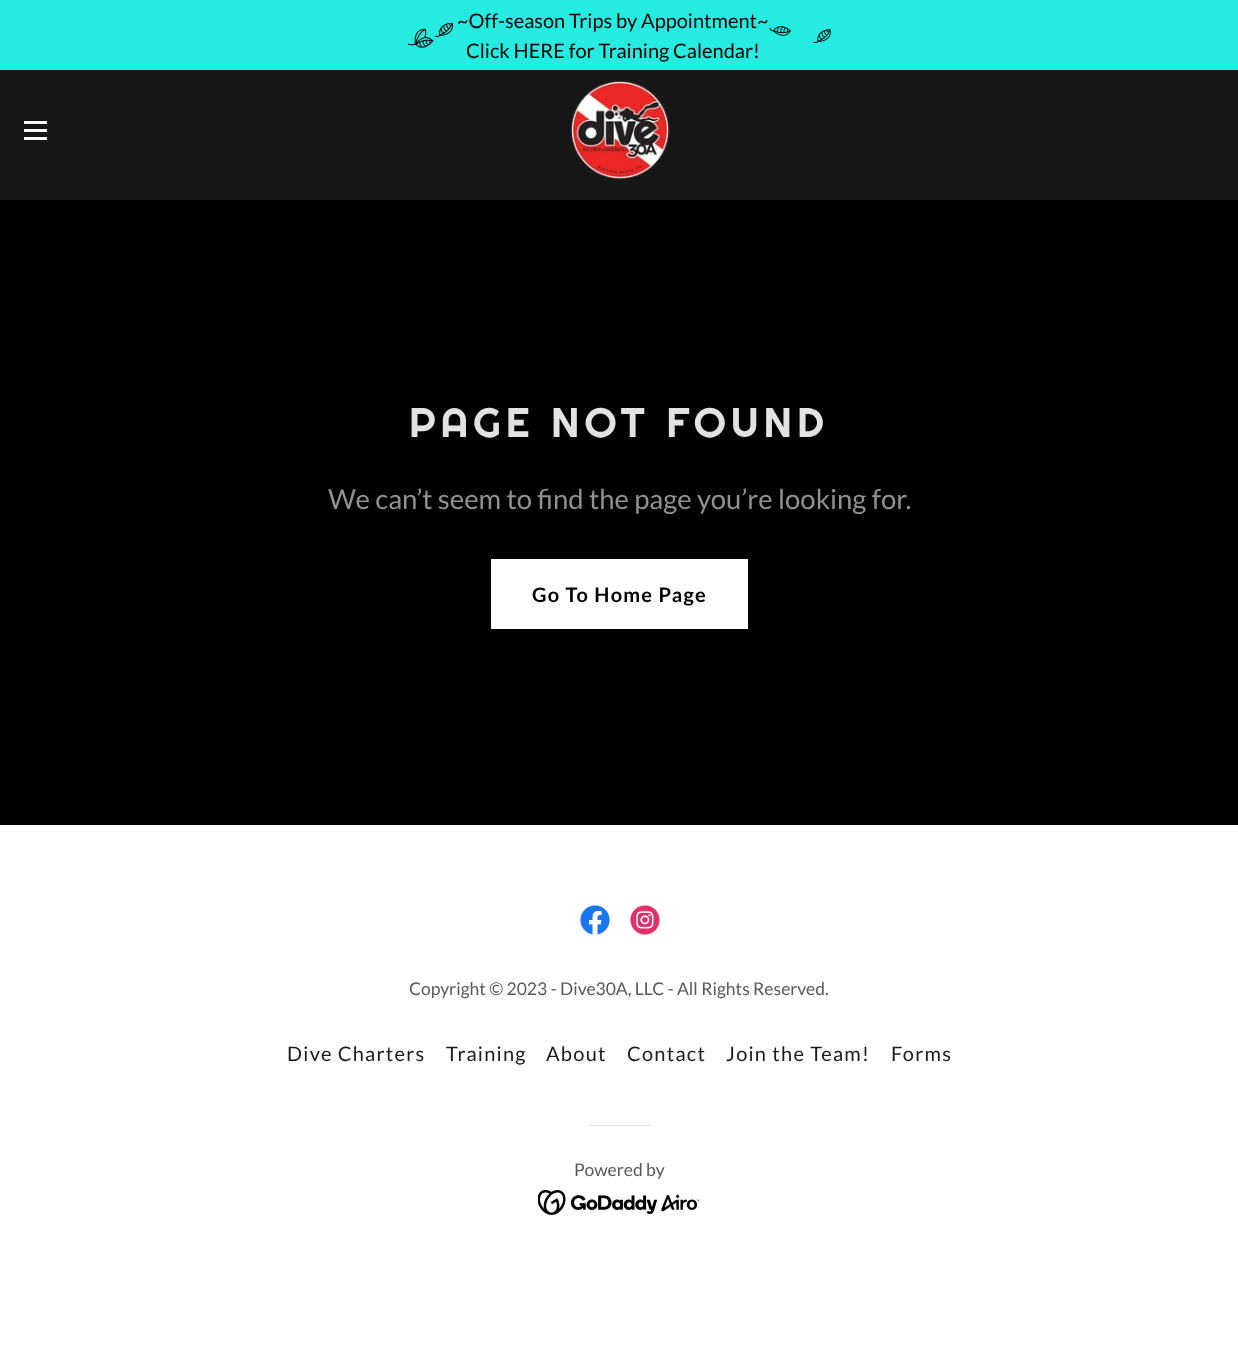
(async () => {
    const canvas = document.querySelector("canvas");
    canvas.width = 1238;
    canvas.height = 1367;
    const context = canvas.getContext("2d");
    context.miterLimit = 4;
    context.fontKerning = "normal";
    function write(s, x, y, font, color) {
        context.font = font;
        context.fillStyle = color;
        context.fillText(s, x, y);
    }
    function block(x, y, w, h, color) {
        context.fillStyle = color;
        context.fillRect(x, y, w, h);
    }
    async function photo(src, x, y, w, h) {
        const img = new Image();
        img.src = src;
        await img.decode();
        context.drawImage(img, x, y, w, h);
    }

    block(0, 0, 1238, 1367, "rgb(255, 255, 255)");
    block(0, 70, 1238, 130, "rgb(22, 22, 22)");
    block(0, 0, 1238, 70, "rgb(37, 235, 225)");
    await photo("media/1.png", 408, 23, 45, 25);
    write("~Off-season Trips by Appointment~", 457, 28, "20px Lato", "rgb(0, 0, 0)");
    write("Click HERE for Training Calendar!", 466, 58, "20px Lato", "rgb(0, 0, 0)");
    await photo("media/2.png", 769, 26, 62, 18);
    block(24, 121, 23, 3, "rgb(247, 247, 247)");
    block(24, 129, 23, 3, "rgb(247, 247, 247)");
    block(24, 137, 23, 3, "rgb(247, 247, 247)");
    await photo("media/3.png", 570, 80, 100, 100);
    block(0, 200, 1238, 625, "rgb(0, 0, 0)");
    context.letterSpacing = "5px";
    write("PAGE NOT FOUND", 409, 437, "41.25px Righteous", "rgb(226, 226, 226)");
    context.letterSpacing = "0px";
    write("We can’t seem to find the page you’re looking for.", 328, 509, "27.5px Lato", "rgb(145, 145, 145)");
    block(491, 559, 257, 70, "rgb(255, 255, 255)");
    context.letterSpacing = "1.25px";
    write("Go To Home Page", 532, 602, "bold 20px Lato", "rgb(0, 0, 0)");
    await photo("media/4.png", 580, 905, 30, 30);
    await photo("media/5.png", 630, 905, 30, 30);
    context.letterSpacing = "0px";
    write("Copyright © 2023 - Dive30A, LLC - All Rights Reserved.", 409, 995, "17.5px Lato", "rgb(89, 89, 89)");
    context.letterSpacing = "1.25px";
    write("Dive Charters", 287, 1061, "20px Lato", "rgb(27, 27, 27)");
    write("Training", 446, 1061, "20px Lato", "rgb(27, 27, 27)");
    write("About", 546, 1061, "20px Lato", "rgb(27, 27, 27)");
    write("Contact", 627, 1061, "20px Lato", "rgb(27, 27, 27)");
    write("Join the Team!", 726, 1061, "20px Lato", "rgb(27, 27, 27)");
    write("Forms", 891, 1061, "20px Lato", "rgb(27, 27, 27)");
    block(589, 1125, 62, 1, "rgb(226, 226, 226)");
    context.letterSpacing = "0px";
    write("Powered by", 574, 1176, "17.5px Lato", "rgb(89, 89, 89)");
    await photo("media/6.png", 538, 1190, 162, 25);
})();
